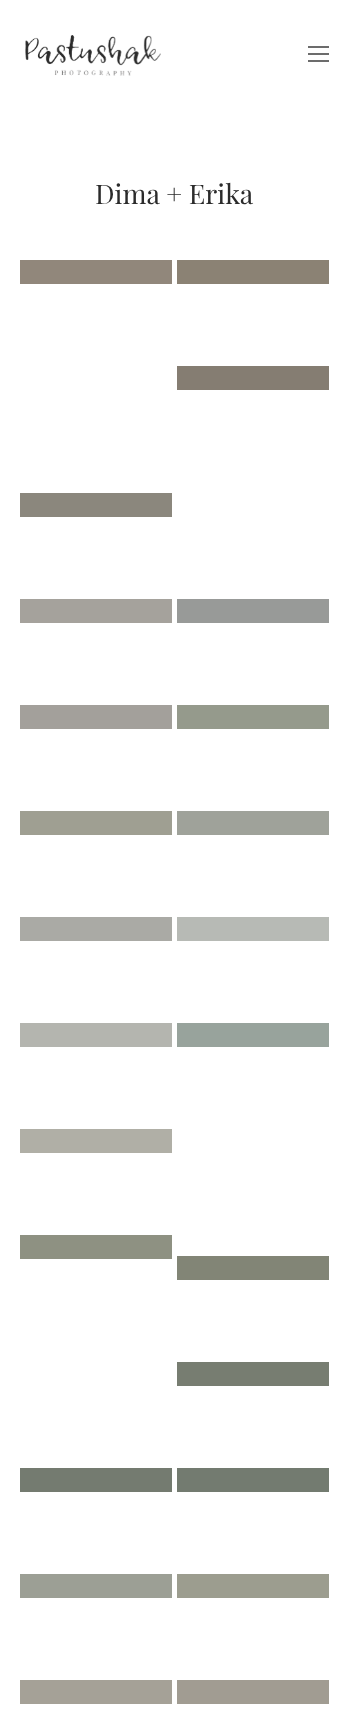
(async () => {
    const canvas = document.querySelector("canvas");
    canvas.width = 349;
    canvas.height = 1720;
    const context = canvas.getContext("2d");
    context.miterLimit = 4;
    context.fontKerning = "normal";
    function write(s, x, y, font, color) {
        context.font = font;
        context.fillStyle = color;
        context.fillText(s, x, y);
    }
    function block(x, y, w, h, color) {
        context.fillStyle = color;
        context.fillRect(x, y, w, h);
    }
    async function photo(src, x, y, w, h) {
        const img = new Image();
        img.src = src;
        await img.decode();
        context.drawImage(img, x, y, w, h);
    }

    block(0, 0, 349, 1720, "rgb(255, 255, 255)");
    await photo("media/1.png", 25, 35, 136, 41);
    block(308, 46, 21, 2, "rgb(108, 108, 108)");
    block(308, 53, 21, 2, "rgb(108, 108, 108)");
    block(308, 60, 21, 2, "rgb(108, 108, 108)");
    write("Dima + Erika", 95, 204, "27px playfair display", "rgb(43, 43, 43)");
    block(20, 260, 152, 24, "rgb(145, 135, 123)");
    block(177, 260, 152, 24, "rgb(139, 130, 116)");
    block(177, 366, 152, 24, "rgb(133, 125, 114)");
    block(20, 493, 152, 24, "rgb(139, 135, 125)");
    block(20, 599, 152, 24, "rgb(165, 162, 156)");
    block(177, 599, 152, 24, "rgb(152, 154, 152)");
    block(20, 705, 152, 24, "rgb(163, 160, 155)");
    block(177, 705, 152, 24, "rgb(149, 154, 140)");
    block(20, 811, 152, 24, "rgb(159, 159, 146)");
    block(177, 811, 152, 24, "rgb(159, 162, 154)");
    block(20, 917, 152, 24, "rgb(170, 170, 165)");
    block(177, 917, 152, 24, "rgb(183, 186, 181)");
    block(20, 1023, 152, 24, "rgb(180, 181, 175)");
    block(177, 1023, 152, 24, "rgb(152, 163, 156)");
    block(20, 1129, 152, 24, "rgb(176, 175, 166)");
    block(20, 1235, 152, 24, "rgb(142, 145, 130)");
    block(177, 1256, 152, 24, "rgb(130, 133, 118)");
    block(177, 1362, 152, 24, "rgb(119, 125, 113)");
    block(20, 1468, 152, 24, "rgb(116, 123, 112)");
    block(177, 1468, 152, 24, "rgb(115, 123, 112)");
    block(20, 1574, 152, 24, "rgb(156, 159, 149)");
    block(177, 1574, 152, 24, "rgb(156, 157, 143)");
    block(20, 1680, 152, 24, "rgb(165, 161, 151)");
    block(177, 1680, 152, 24, "rgb(161, 156, 146)");
})();
